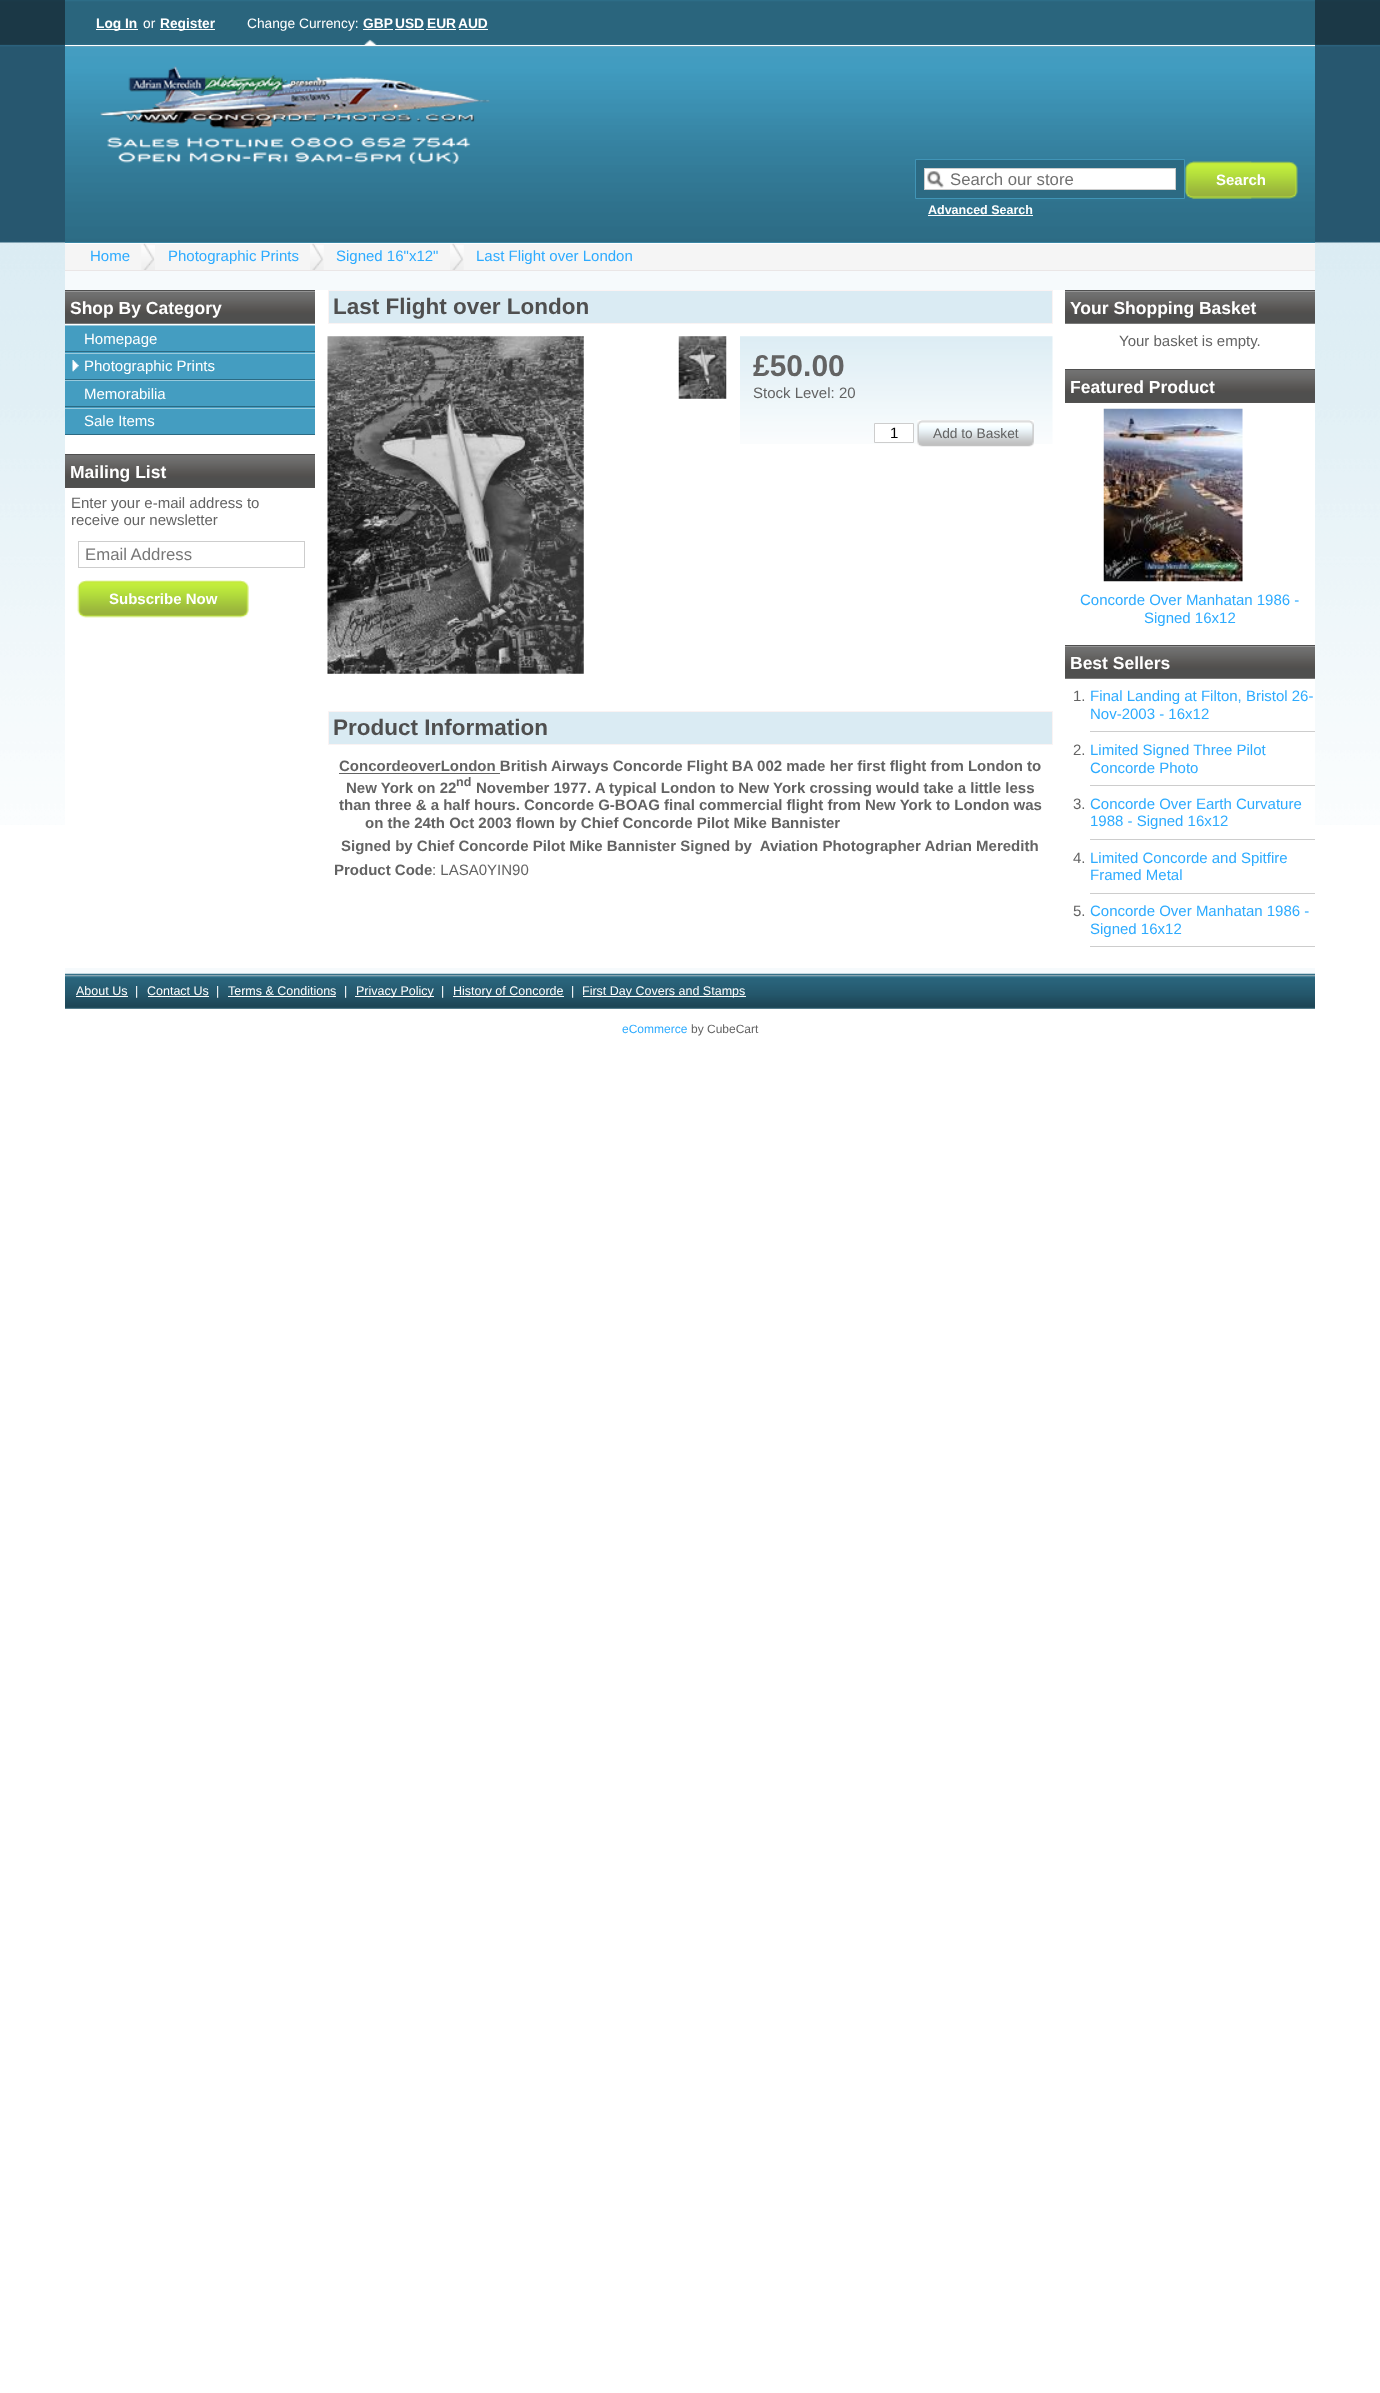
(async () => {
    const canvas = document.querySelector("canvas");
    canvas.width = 1380;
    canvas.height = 2393;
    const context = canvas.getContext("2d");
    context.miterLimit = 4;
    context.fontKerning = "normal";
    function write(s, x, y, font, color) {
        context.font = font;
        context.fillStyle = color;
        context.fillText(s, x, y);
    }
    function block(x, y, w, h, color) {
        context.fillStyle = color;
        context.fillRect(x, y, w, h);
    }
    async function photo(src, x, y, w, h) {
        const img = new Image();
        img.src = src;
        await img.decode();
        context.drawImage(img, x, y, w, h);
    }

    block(0, 0, 1380, 2393, "rgb(255, 255, 255)");
    await photo("media/1.png", 0, 0, 1380, 825);
    block(65, 46, 1250, 963, "rgb(246, 250, 252)");
    await photo("media/2.png", 65, 0, 1250, 47);
    block(65, 45, 1250, 1, "rgb(255, 255, 255)");
    block(96, 29, 42, 1, "rgb(255, 255, 255)");
    write("Log In", 96, 28, "bold 13.75px Liberation Sans", "rgb(255, 255, 255)");
    write("or", 143, 28, "13.75px Liberation Sans", "rgb(255, 255, 255)");
    block(160, 29, 55, 1, "rgb(255, 255, 255)");
    write("Register", 160, 28, "bold 13.75px Liberation Sans", "rgb(255, 255, 255)");
    write("Change Currency:", 247, 28, "13.75px Liberation Sans", "rgb(255, 255, 255)");
    await photo("media/3.png", 362, 39, 16, 6);
    write("GBP", 363, 28, "bold 13.75px Liberation Sans", "rgb(255, 255, 255)");
    block(363, 29, 30, 1, "rgb(255, 255, 255)");
    write("USD", 395, 28, "bold 13.75px Liberation Sans", "rgb(255, 255, 255)");
    block(395, 29, 29, 1, "rgb(255, 255, 255)");
    write("EUR", 427, 28, "bold 13.75px Liberation Sans", "rgb(255, 255, 255)");
    block(426, 29, 30, 1, "rgb(255, 255, 255)");
    write("AUD", 458, 28, "bold 13.75px Liberation Sans", "rgb(255, 255, 255)");
    block(459, 29, 29, 1, "rgb(255, 255, 255)");
    await photo("media/4.png", 65, 46, 1250, 197);
    block(65, 243, 1250, 1, "rgb(255, 255, 255)");
    await photo("media/5.png", 100, 66, 390, 98);
    context.fillStyle = "rgb(44, 106, 131)";
    context.beginPath();
    context.rect(915.5, 159.5, 269, 39);
    context.fill();
    context.strokeStyle = "rgb(65, 149, 183)";
    context.stroke();
    block(925, 169, 250, 20, "rgb(255, 255, 255)");
    await photo("media/6.png", 927, 171, 17, 17);
    context.strokeStyle = "rgb(205, 205, 205)";
    context.strokeRect(924.5, 168.5, 251, 21);
    write("Search our store", 950, 185, "16.75px Liberation Sans", "rgb(113, 113, 113)");
    await photo("media/7.png", 1185, 161, 113, 38);
    write("Search", 1216, 185, "bold 15px Liberation Sans", "rgb(255, 255, 255)");
    write("Advanced Search", 928, 214, "bold 12.5px Liberation Sans", "rgb(255, 255, 255)");
    block(928, 215, 105, 1, "rgb(255, 255, 255)");
    block(65, 244, 1250, 26, "rgb(245, 245, 245)");
    block(65, 270, 1250, 1, "rgb(234, 230, 230)");
    await photo("media/8.png", 141, 243, 14, 27);
    write("Home", 90, 261, "15px Liberation Sans", "rgb(45, 171, 255)");
    await photo("media/9.png", 310, 243, 14, 27);
    write("Photographic Prints", 168, 261, "15px Liberation Sans", "rgb(45, 171, 255)");
    await photo("media/10.png", 450, 243, 14, 27);
    write("Signed 16\"x12\"", 336, 261, "15px Liberation Sans", "rgb(45, 171, 255)");
    write("Last Flight over London", 476, 261, "15px Liberation Sans", "rgb(45, 171, 255)");
    block(65, 290, 1250, 678, "rgb(255, 255, 255)");
    await photo("media/11.png", 65, 291, 250, 33);
    block(65, 290, 250, 1, "rgb(79, 79, 79)");
    write("Shop By Category", 70, 314, "bold 17.5px Liberation Sans", "rgb(255, 255, 255)");
    block(65, 326, 250, 27, "rgb(68, 157, 193)");
    block(65, 325, 250, 1, "rgb(152, 201, 220)");
    block(65, 351, 250, 1, "rgb(44, 106, 131)");
    write("Homepage", 84, 344, "15px Liberation Sans", "rgb(255, 255, 255)");
    block(65, 354, 250, 25, "rgb(68, 157, 193)");
    await photo("media/12.png", 72, 360, 7, 12);
    block(65, 353, 250, 1, "rgb(152, 201, 220)");
    block(65, 379, 250, 1, "rgb(44, 106, 131)");
    write("Photographic Prints", 84, 371, "15px Liberation Sans", "rgb(255, 255, 255)");
    block(65, 381, 250, 27, "rgb(68, 157, 193)");
    block(65, 380, 250, 1, "rgb(152, 201, 220)");
    block(65, 406, 250, 1, "rgb(44, 106, 131)");
    write("Memorabilia", 84, 399, "15px Liberation Sans", "rgb(255, 255, 255)");
    block(65, 409, 250, 25, "rgb(68, 157, 193)");
    block(65, 408, 250, 1, "rgb(152, 201, 220)");
    block(65, 434, 250, 1, "rgb(44, 106, 131)");
    write("Sale Items", 84, 426, "15px Liberation Sans", "rgb(255, 255, 255)");
    block(65, 487, 250, 1, "rgb(89, 87, 85)");
    await photo("media/13.png", 65, 455, 250, 33);
    block(65, 454, 250, 1, "rgb(79, 79, 79)");
    write("Mailing List", 70, 478, "bold 17.5px Liberation Sans", "rgb(255, 255, 255)");
    write("Enter your e-mail address to", 71, 508, "15px Liberation Sans", "rgb(99, 99, 99)");
    write("receive our newsletter", 71, 525, "15px Liberation Sans", "rgb(99, 99, 99)");
    context.strokeRect(78.5, 541.5, 226, 26);
    write("Email Address", 85, 560, "16.75px Liberation Sans", "rgb(119, 119, 119)");
    await photo("media/14.png", 77, 580, 172, 38);
    write("Subscribe Now", 109, 604, "bold 15px Liberation Sans", "rgb(255, 255, 255)");
    context.fillStyle = "rgb(218, 235, 243)";
    context.beginPath();
    context.rect(328.5, 290.5, 724, 33);
    context.fill();
    context.strokeStyle = "rgb(250, 243, 243)";
    context.stroke();
    write("Last Flight over London", 333, 314, "bold 22.5px Liberation Sans", "rgb(79, 79, 79)");
    await photo("media/15.png", 327, 336, 257, 338);
    await photo("media/16.png", 678, 336, 49, 63);
    await photo("media/17.png", 740, 336, 313, 108);
    write("£50.00", 753, 376, "bold 30px Liberation Sans", "rgb(99, 99, 99)");
    write("Stock Level: 20", 753, 398, "15px Liberation Sans", "rgb(99, 99, 99)");
    context.fillStyle = "rgb(255, 255, 255)";
    context.beginPath();
    context.rect(874.5, 423.5, 39, 19);
    context.fill();
    context.strokeStyle = "rgb(205, 205, 205)";
    context.stroke();
    write("1", 890, 438, "15px Liberation Sans", "rgb(0, 0, 0)");
    await photo("media/18.png", 917, 420, 117, 27);
    write("Add to Basket", 933, 438, "13.75px Liberation Sans", "rgb(99, 99, 99)");
    context.fillStyle = "rgb(218, 235, 243)";
    context.beginPath();
    context.rect(328.5, 711.5, 724, 33);
    context.fill();
    context.strokeStyle = "rgb(250, 243, 243)";
    context.stroke();
    write("Product Information", 333, 735, "bold 22.5px Liberation Sans", "rgb(79, 79, 79)");
    block(339, 773, 161, 1, "rgb(99, 99, 99)");
    write("ConcordeoverLondon British Airways Concorde Flight BA 002 made her first flight from London to", 339, 771, "bold 15px Liberation Sans", "rgb(99, 99, 99)");
    write("New York on 22", 346, 793, "bold 15px Liberation Sans", "rgb(99, 99, 99)");
    write("nd", 456, 786, "bold 12.5px Liberation Sans", "rgb(99, 99, 99)");
    write("November 1977. A typical London to New York crossing would take a little less", 476, 793, "bold 15px Liberation Sans", "rgb(99, 99, 99)");
    write("than three & a half hours. Concorde G-BOAG final commercial flight from New York to London was", 339, 810, "bold 15px Liberation Sans", "rgb(99, 99, 99)");
    write("on the 24th Oct 2003 flown by Chief Concorde Pilot Mike Bannister", 365, 828, "bold 15px Liberation Sans", "rgb(99, 99, 99)");
    write("Signed by Chief Concorde Pilot Mike Bannister Signed by  Aviation Photographer Adrian Meredith", 341, 851, "bold 15px Liberation Sans", "rgb(99, 99, 99)");
    write("Product Code", 334, 875, "bold 15px Liberation Sans", "rgb(99, 99, 99)");
    write(": LASA0YIN90", 432, 875, "15px Liberation Sans", "rgb(99, 99, 99)");
    await photo("media/11.png", 1065, 291, 250, 33);
    block(1065, 290, 250, 1, "rgb(79, 79, 79)");
    write("Your Shopping Basket", 1070, 314, "bold 17.5px Liberation Sans", "rgb(255, 255, 255)");
    write("Your basket is empty.", 1119, 346, "15px Liberation Sans", "rgb(99, 99, 99)");
    block(1065, 402, 250, 1, "rgb(89, 87, 85)");
    await photo("media/13.png", 1065, 370, 250, 33);
    block(1065, 369, 250, 1, "rgb(79, 79, 79)");
    write("Featured Product", 1070, 393, "bold 17.5px Liberation Sans", "rgb(255, 255, 255)");
    await photo("media/19.png", 1103, 408, 140, 174);
    write("Concorde Over Manhatan 1986 -", 1080, 605, "15px Liberation Sans", "rgb(45, 171, 255)");
    write("Signed 16x12", 1144, 623, "15px Liberation Sans", "rgb(45, 171, 255)");
    await photo("media/11.png", 1065, 646, 250, 33);
    block(1065, 645, 250, 1, "rgb(79, 79, 79)");
    write("Best Sellers", 1070, 669, "bold 17.5px Liberation Sans", "rgb(255, 255, 255)");
    block(1090, 731, 225, 1, "rgb(205, 205, 205)");
    write("1.", 1073, 701, "15px Liberation Sans", "rgb(99, 99, 99)");
    write("Final Landing at Filton, Bristol 26-", 1090, 701, "15px Liberation Sans", "rgb(45, 171, 255)");
    write("Nov-2003 - 16x12", 1090, 719, "15px Liberation Sans", "rgb(45, 171, 255)");
    block(1090, 785, 225, 1, "rgb(205, 205, 205)");
    write("2.", 1073, 755, "15px Liberation Sans", "rgb(99, 99, 99)");
    write("Limited Signed Three Pilot", 1090, 755, "15px Liberation Sans", "rgb(45, 171, 255)");
    write("Concorde Photo", 1090, 773, "15px Liberation Sans", "rgb(45, 171, 255)");
    block(1090, 839, 225, 1, "rgb(205, 205, 205)");
    write("3.", 1073, 809, "15px Liberation Sans", "rgb(99, 99, 99)");
    write("Concorde Over Earth Curvature", 1090, 809, "15px Liberation Sans", "rgb(45, 171, 255)");
    write("1988 - Signed 16x12", 1090, 826, "15px Liberation Sans", "rgb(45, 171, 255)");
    block(1090, 893, 225, 1, "rgb(205, 205, 205)");
    write("4.", 1073, 863, "15px Liberation Sans", "rgb(99, 99, 99)");
    write("Limited Concorde and Spitfire", 1090, 863, "15px Liberation Sans", "rgb(45, 171, 255)");
    write("Framed Metal", 1090, 880, "15px Liberation Sans", "rgb(45, 171, 255)");
    block(1090, 946, 225, 1, "rgb(205, 205, 205)");
    write("5.", 1073, 916, "15px Liberation Sans", "rgb(99, 99, 99)");
    write("Concorde Over Manhatan 1986 -", 1090, 916, "15px Liberation Sans", "rgb(45, 171, 255)");
    write("Signed 16x12", 1090, 934, "15px Liberation Sans", "rgb(45, 171, 255)");
    await photo("media/20.png", 65, 973, 1250, 36);
    write("About Us", 76, 995, "12.5px Liberation Sans", "rgb(255, 255, 255)");
    block(76, 996, 52, 1, "rgb(255, 255, 255)");
    write("|", 135, 995, "12.5px Liberation Sans", "rgb(255, 255, 255)");
    write("Contact Us", 147, 995, "12.5px Liberation Sans", "rgb(255, 255, 255)");
    block(148, 996, 61, 1, "rgb(255, 255, 255)");
    write("|", 216, 995, "12.5px Liberation Sans", "rgb(255, 255, 255)");
    write("Terms & Conditions", 228, 995, "12.5px Liberation Sans", "rgb(255, 255, 255)");
    block(228, 996, 108, 1, "rgb(255, 255, 255)");
    write("|", 344, 995, "12.5px Liberation Sans", "rgb(255, 255, 255)");
    block(355, 996, 79, 1, "rgb(255, 255, 255)");
    write("Privacy Policy", 356, 995, "12.5px Liberation Sans", "rgb(255, 255, 255)");
    write("|", 441, 995, "12.5px Liberation Sans", "rgb(255, 255, 255)");
    block(453, 996, 111, 1, "rgb(255, 255, 255)");
    write("History of Concorde", 453, 995, "12.5px Liberation Sans", "rgb(255, 255, 255)");
    write("|", 571, 995, "12.5px Liberation Sans", "rgb(255, 255, 255)");
    block(583, 996, 163, 1, "rgb(255, 255, 255)");
    write("First Day Covers and Stamps", 582, 995, "12.5px Liberation Sans", "rgb(255, 255, 255)");
    write("eCommerce", 622, 1033, "12px Liberation Sans", "rgb(45, 171, 255)");
    write("by CubeCart", 691, 1033, "12px Liberation Sans", "rgb(99, 99, 99)");
})();
